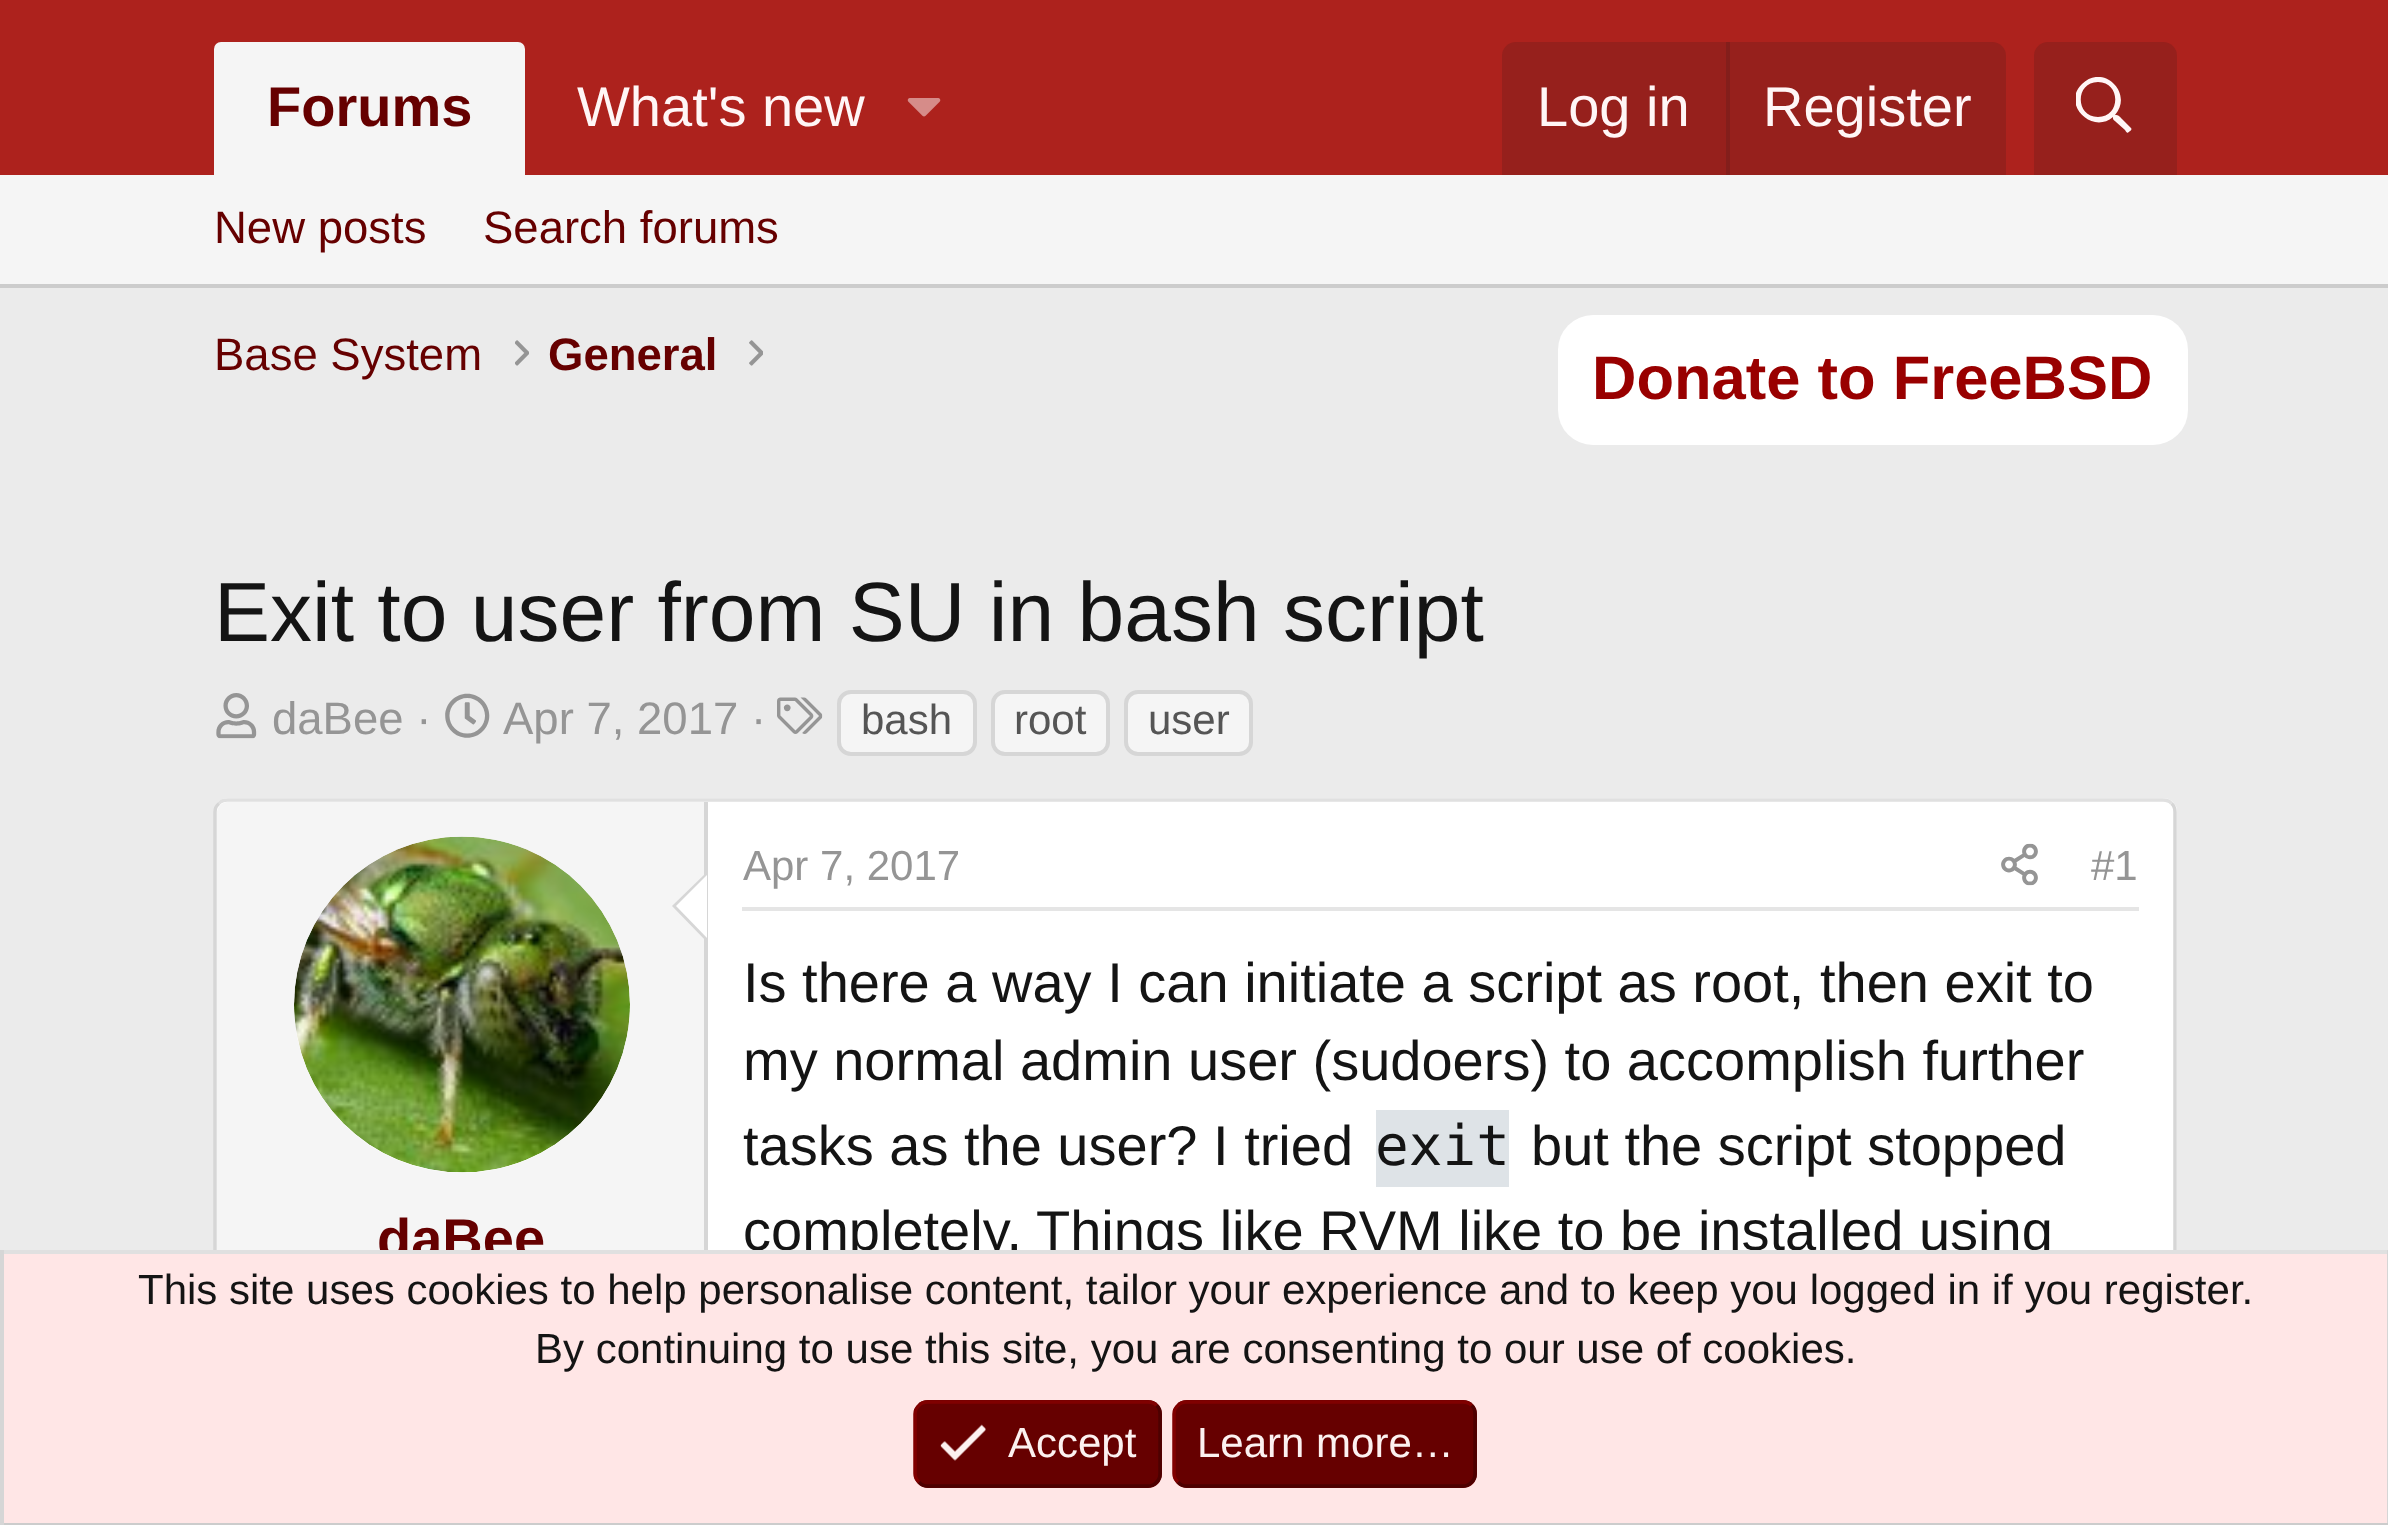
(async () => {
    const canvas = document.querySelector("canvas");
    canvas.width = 2388;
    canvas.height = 1525;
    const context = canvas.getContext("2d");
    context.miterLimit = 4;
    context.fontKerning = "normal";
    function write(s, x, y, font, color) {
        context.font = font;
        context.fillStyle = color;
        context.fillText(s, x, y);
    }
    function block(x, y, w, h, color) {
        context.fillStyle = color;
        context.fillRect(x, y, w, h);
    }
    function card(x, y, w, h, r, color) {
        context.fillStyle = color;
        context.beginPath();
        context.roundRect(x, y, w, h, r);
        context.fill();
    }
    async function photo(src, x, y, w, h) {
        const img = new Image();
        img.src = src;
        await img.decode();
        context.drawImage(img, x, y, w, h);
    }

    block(0, 0, 2388, 1525, "rgb(235, 235, 235)");
    block(0, 0, 2388, 175, "rgb(173, 34, 29)");
    context.fillStyle = "rgb(245, 245, 245)";
    context.beginPath();
    context.roundRect(214, 42, 311, 133, [7, 7, 0, 0]);
    context.fill();
    write("Forums", 267, 126, "bold 56px Liberation Sans", "rgb(102, 0, 0)");
    write("What's new", 577, 126, "56px Liberation Sans", "rgb(255, 246, 246)");
    await photo("media/1.png", 907, 98, 34, 19);
    context.fillStyle = "rgb(150, 32, 28)";
    context.beginPath();
    context.roundRect(1502, 42, 504, 133, [14, 14, 0, 0]);
    context.fill();
    write("Log in", 1537, 126, "56px Liberation Sans", "rgb(255, 246, 246)");
    block(1726, 42, 4, 133, "rgb(131, 30, 27)");
    write("Register", 1763, 126, "56px Liberation Sans", "rgb(255, 246, 246)");
    context.fillStyle = "rgb(150, 32, 28)";
    context.beginPath();
    context.roundRect(2034, 42, 143, 133, [14, 14, 0, 0]);
    context.fill();
    context.save();
    context.beginPath();
    context.rect(2076, 77, 56, 56);
    context.clip();
    context.fillStyle = "rgb(255, 246, 246)";
    context.beginPath();
    context.moveTo(2131, 128);
    context.lineTo(2122, 119);
    context.bezierCurveTo(2119, 116, 2119, 115, 2115, 115);
    context.bezierCurveTo(2134, 93, 2103, 63, 2082, 84);
    context.bezierCurveTo(2061, 104, 2092, 135, 2113, 117);
    context.bezierCurveTo(2113, 120, 2113, 119, 2116, 122);
    context.lineTo(2125, 130);
    context.bezierCurveTo(2127, 133, 2127, 134, 2130, 131);
    context.bezierCurveTo(2131, 131, 2132, 129, 2131, 128);
    context.closePath();
    context.moveTo(2098, 117);
    context.bezierCurveTo(2075, 117, 2075, 82, 2098, 82);
    context.bezierCurveTo(2121, 82, 2121, 117, 2098, 117);
    context.closePath();
    context.fill();
    context.restore();
    block(0, 175, 2388, 109, "rgb(245, 245, 245)");
    block(0, 284, 2388, 4, "rgb(204, 204, 204)");
    write("New posts", 214, 243, "45.5px Liberation Sans", "rgb(102, 0, 0)");
    write("Search forums", 483, 243, "45.5px Liberation Sans", "rgb(102, 0, 0)");
    write("Base System", 214, 370, "45.5px Liberation Sans", "rgb(102, 0, 0)");
    await photo("media/2.png", 515, 340, 14, 26);
    write("General", 548, 370, "bold 45.5px Liberation Sans", "rgb(102, 0, 0)");
    await photo("media/3.png", 749, 340, 14, 26);
    write("Exit to user from SU in bash script", 214, 641, "84px Liberation Sans", "rgb(20, 20, 20)");
    await photo("media/4.png", 216, 693, 41, 46);
    write("daBee ·", 272, 734, "45.5px Liberation Sans", "rgb(149, 149, 149)");
    await photo("media/5.png", 445, 693, 45, 45);
    write("Apr 7, 2017 ·", 503, 734, "45.5px Liberation Sans", "rgb(149, 149, 149)");
    await photo("media/6.png", 777, 697, 46, 37);
    context.fillStyle = "rgb(245, 245, 245)";
    context.beginPath();
    context.roundRect(839, 692, 136, 62, 12);
    context.fill();
    context.strokeStyle = "rgb(214, 214, 214)";
    context.lineWidth = 4;
    context.stroke();
    write("bash", 861, 734, "42px Liberation Sans", "rgb(85, 85, 85)");
    context.fillStyle = "rgb(245, 245, 245)";
    context.beginPath();
    context.roundRect(993, 692, 115, 62, 12);
    context.fill();
    context.stroke();
    write("root", 1014, 734, "42px Liberation Sans", "rgb(85, 85, 85)");
    context.fillStyle = "rgb(245, 245, 245)";
    context.beginPath();
    context.roundRect(1126, 692, 125, 62, 12);
    context.fill();
    context.stroke();
    write("user", 1148, 734, "42px Liberation Sans", "rgb(85, 85, 85)");
    card(214, 798, 1963, 592, 14, "rgb(255, 255, 255)");
    context.beginPath();
    context.moveTo(219, 803.5);
    context.bezierCurveTo(221, 801, 224.5, 800, 227.5, 800);
    context.lineTo(2163, 800);
    context.bezierCurveTo(2166, 800, 2169.5, 801, 2171.5, 803.5);
    context.strokeStyle = "rgb(224, 224, 224)";
    context.lineWidth = 3.5;
    context.stroke();
    context.beginPath();
    context.moveTo(2171.5, 803.5);
    context.bezierCurveTo(2174, 805.5, 2175, 809, 2175, 812);
    context.lineTo(2175, 1375.5);
    context.bezierCurveTo(2175, 1378.5, 2174, 1382, 2171.5, 1384);
    context.strokeStyle = "rgb(214, 214, 214)";
    context.stroke();
    context.beginPath();
    context.moveTo(219, 1384);
    context.bezierCurveTo(216.5, 1382, 215, 1378.5, 215, 1375.5);
    context.lineTo(215, 812);
    context.bezierCurveTo(215, 809, 216.5, 805.5, 219, 803.5);
    context.stroke();
    context.fillStyle = "rgb(245, 245, 245)";
    context.beginPath();
    context.roundRect(217, 802, 490, 584, [11, 0, 0, 11]);
    context.fill();
    block(704, 802, 4, 448, "rgb(214, 214, 214)");
    context.fillStyle = "rgb(255, 255, 255)";
    context.beginPath();
    context.arc(462, 1005, 168, 0, Math.PI * 2);
    context.fill();
    await photo("media/7.png", 294, 836, 336, 337);
    context.fillStyle = "rgb(214, 214, 214)";
    context.beginPath();
    context.moveTo(707, 872);
    context.lineTo(707, 942);
    context.lineTo(672, 906);
    context.closePath();
    context.fill();
    context.fillStyle = "rgb(255, 255, 255)";
    context.beginPath();
    context.moveTo(707, 875);
    context.lineTo(707, 938);
    context.lineTo(676, 906);
    context.closePath();
    context.fill();
    write("daBee", 377, 1258, "bold 56px Liberation Sans", "rgb(102, 0, 0)");
    block(742, 907, 1397, 4, "rgb(229, 229, 229)");
    write("Apr 7, 2017", 743, 880, "42px Liberation Sans", "rgb(149, 149, 149)");
    await photo("media/8.png", 2001, 843, 37, 43);
    write("#1", 2091, 880, "42px Liberation Sans", "rgb(149, 149, 149)");
    write("Is there a way I can initiate a script as root, then exit to", 743, 1002, "56px Liberation Sans", "rgb(20, 20, 20)");
    write("my normal admin user (sudoers) to accomplish further", 743, 1080, "56px Liberation Sans", "rgb(20, 20, 20)");
    write("tasks as the user? I tried", 743, 1165, "56px Liberation Sans", "rgb(20, 20, 20)");
    block(1376, 1110, 133, 77, "rgb(222, 227, 231)");
    write("exit", 1375, 1165, "56px DejaVu Sans Mono", "rgb(20, 20, 20)");
    write("but the script stopped", 1531, 1165, "56px Liberation Sans", "rgb(20, 20, 20)");
    write("completely.", 743, 1250, "56px Liberation Sans", "rgb(20, 20, 20)");
    write("Things like RVM like to be installed using", 1036, 1250, "56px Liberation Sans", "rgb(20, 20, 20)");
    card(1558, 315, 630, 130, 35, "rgb(255, 255, 255)");
    write("Donate to FreeBSD", 1592, 399, "bold 61.5px Liberation Sans", "rgb(153, 0, 0)");
    block(4, 1254, 2383, 269, "rgb(255, 230, 230)");
    block(0, 1250, 2388, 4, "rgb(224, 224, 224)");
    block(2387, 1250, 1, 275, "rgb(214, 214, 214)");
    block(0, 1523, 2388, 2, "rgb(204, 204, 204)");
    block(0, 1250, 4, 275, "rgb(214, 214, 214)");
    write("This site uses cookies to help personalise content, tailor your experience and to keep you logged in if you register.", 138, 1304, "42px Liberation Sans", "rgb(20, 20, 20)");
    write("By continuing to use this site, you are consenting to our use of cookies.", 535, 1363, "42px Liberation Sans", "rgb(20, 20, 20)");
    card(914, 1400, 248, 88, 14, "rgb(102, 0, 0)");
    context.beginPath();
    context.moveTo(1156.5, 1405.5);
    context.bezierCurveTo(1159, 1407.5, 1160, 1411, 1160, 1414);
    context.lineTo(1160, 1473.5);
    context.bezierCurveTo(1160, 1476.5, 1159, 1480, 1156.5, 1482);
    context.bezierCurveTo(1154.5, 1484.5, 1151, 1486, 1148, 1486);
    context.lineTo(927.5, 1486);
    context.bezierCurveTo(924.5, 1486, 921, 1484.5, 919, 1482);
    context.strokeStyle = "rgb(77, 0, 0)";
    context.stroke();
    context.beginPath();
    context.moveTo(919, 1482);
    context.bezierCurveTo(916.5, 1480, 915, 1476.5, 915, 1473.5);
    context.lineTo(915, 1414);
    context.bezierCurveTo(915, 1411, 916.5, 1407.5, 919, 1405.5);
    context.bezierCurveTo(921, 1403, 924.5, 1402, 927.5, 1402);
    context.lineTo(1148, 1402);
    context.bezierCurveTo(1151, 1402, 1154.5, 1403, 1156.5, 1405.5);
    context.strokeStyle = "rgb(128, 0, 0)";
    context.stroke();
    await photo("media/9.png", 940, 1424, 46, 37);
    write("Accept", 1008, 1457, "42px Liberation Sans", "rgb(252, 241, 240)");
    card(1173, 1400, 304, 88, 14, "rgb(102, 0, 0)");
    context.beginPath();
    context.moveTo(1471.5, 1405.5);
    context.bezierCurveTo(1474, 1407.5, 1475, 1411, 1475, 1414);
    context.lineTo(1475, 1473.5);
    context.bezierCurveTo(1475, 1476.5, 1474, 1480, 1471.5, 1482);
    context.bezierCurveTo(1469.5, 1484.5, 1466, 1486, 1463, 1486);
    context.lineTo(1186.5, 1486);
    context.bezierCurveTo(1183.5, 1486, 1180, 1484.5, 1178, 1482);
    context.strokeStyle = "rgb(77, 0, 0)";
    context.stroke();
    context.beginPath();
    context.moveTo(1178, 1482);
    context.bezierCurveTo(1175.5, 1480, 1174, 1476.5, 1174, 1473.5);
    context.lineTo(1174, 1414);
    context.bezierCurveTo(1174, 1411, 1175.5, 1407.5, 1178, 1405.5);
    context.bezierCurveTo(1180, 1403, 1183.5, 1402, 1186.5, 1402);
    context.lineTo(1463, 1402);
    context.bezierCurveTo(1466, 1402, 1469.5, 1403, 1471.5, 1405.5);
    context.strokeStyle = "rgb(128, 0, 0)";
    context.stroke();
    write("Learn more…", 1197, 1457, "42px Liberation Sans", "rgb(252, 241, 240)");
})();
